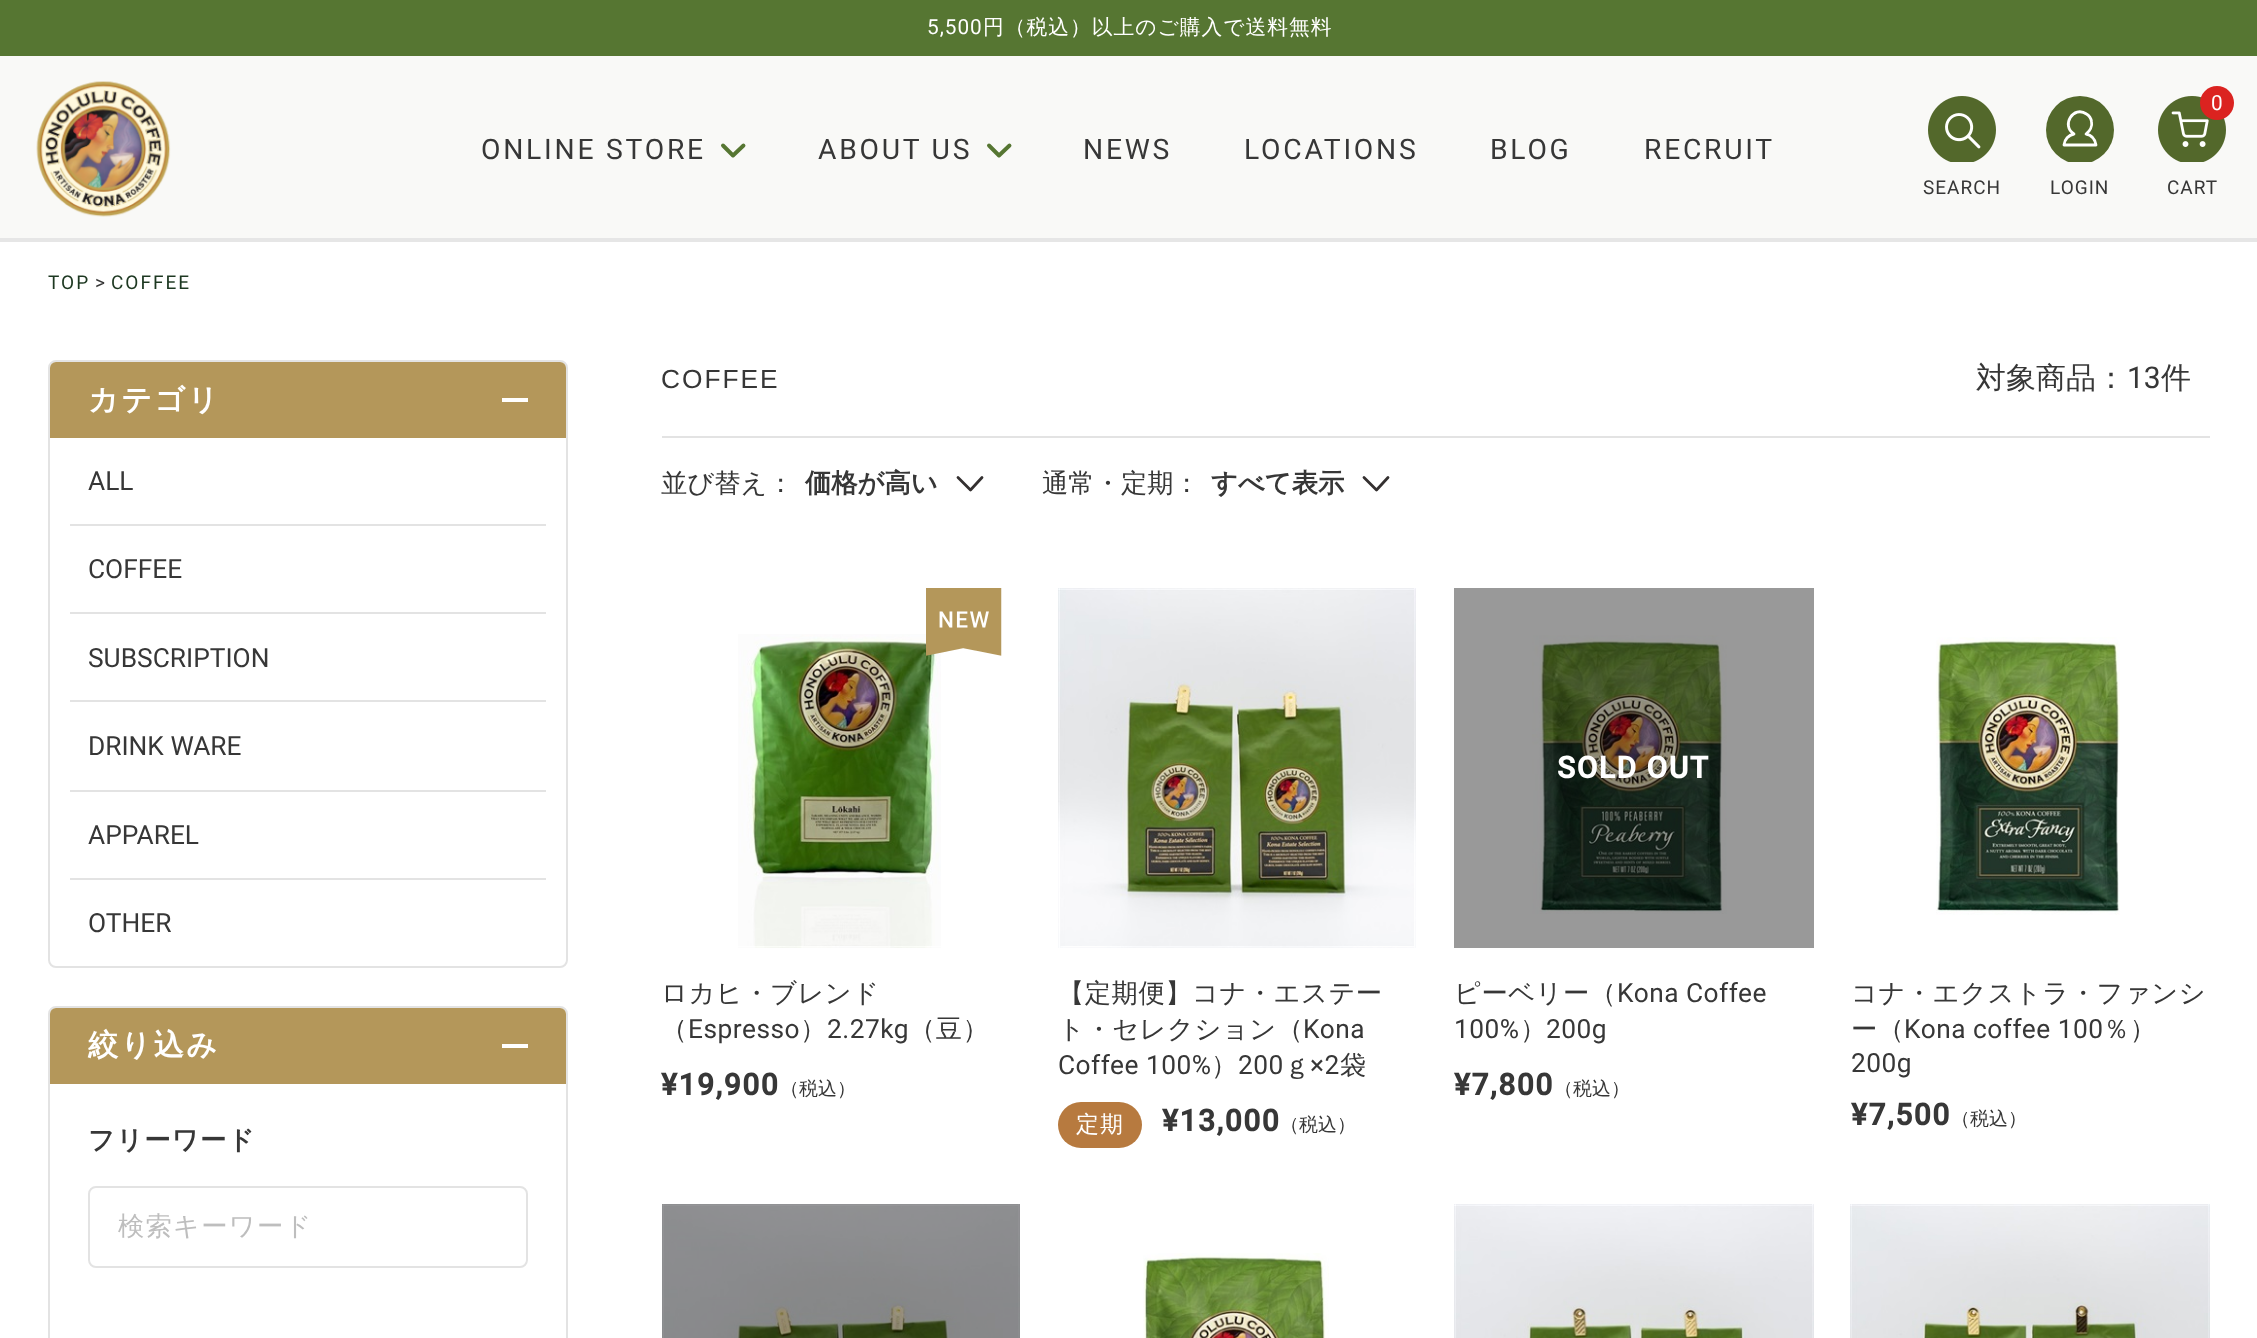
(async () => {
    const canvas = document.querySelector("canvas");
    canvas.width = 2257;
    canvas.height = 1338;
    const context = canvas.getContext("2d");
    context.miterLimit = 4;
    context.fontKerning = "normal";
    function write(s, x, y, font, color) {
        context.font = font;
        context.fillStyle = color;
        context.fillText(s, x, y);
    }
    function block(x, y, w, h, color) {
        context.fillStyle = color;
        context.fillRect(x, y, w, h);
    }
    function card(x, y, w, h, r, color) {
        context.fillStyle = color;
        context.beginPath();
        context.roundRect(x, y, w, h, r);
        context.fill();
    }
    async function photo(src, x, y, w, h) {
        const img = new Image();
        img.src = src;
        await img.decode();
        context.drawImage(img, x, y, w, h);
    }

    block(0, 0, 2257, 1338, "rgb(255, 255, 255)");
    block(1454, 588, 360, 360, "rgb(153, 153, 153)");
    block(0, 0, 2257, 56, "rgb(86, 118, 50)");
    context.letterSpacing = "1px";
    write("5,500", 927, 34, "20.75px Roboto", "rgb(255, 255, 255)");
    write("円（税込）以上のご購入で送料無料", 983, 34, "500 20.75px WenQuanYi Zen Hei", "rgb(255, 255, 255)");
    block(0, 56, 2257, 182, "rgb(249, 249, 247)");
    block(0, 238, 2257, 4, "rgb(230, 230, 230)");
    await photo("media/1.png", 36, 81, 135, 136);
    context.letterSpacing = "2.75px";
    write("ONLINE STORE", 481, 159, "28.25px Roboto", "rgb(55, 55, 55)");
    context.beginPath();
    context.moveTo(723, 145.5);
    context.lineTo(733, 155.5);
    context.lineTo(743.5, 145.5);
    context.strokeStyle = "rgb(86, 118, 50)";
    context.lineWidth = 3.9;
    context.lineCap = "round";
    context.lineJoin = "round";
    context.stroke();
    write("ABOUT US", 818, 159, "28.25px Roboto", "rgb(55, 55, 55)");
    context.beginPath();
    context.moveTo(989, 145.5);
    context.lineTo(999, 155.5);
    context.lineTo(1009.5, 145.5);
    context.stroke();
    write("NEWS", 1083, 159, "28.25px Roboto", "rgb(55, 55, 55)");
    write("LOCATIONS", 1244, 159, "28.25px Roboto", "rgb(55, 55, 55)");
    write("BLOG", 1490, 159, "28.25px Roboto", "rgb(55, 55, 55)");
    write("RECRUIT", 1644, 159, "28.25px Roboto", "rgb(55, 55, 55)");
    await photo("media/2.png", 1928, 96, 68, 66);
    context.letterSpacing = "1px";
    write("SEARCH", 1923, 194, "19px Roboto", "rgb(55, 55, 55)");
    context.save();
    context.beginPath();
    context.rect(2046, 96, 68, 66);
    context.clip();
    context.fillStyle = "rgb(83, 104, 43)";
    context.beginPath();
    context.arc(2080, 130, 34, 0, Math.PI * 2);
    context.fill();
    context.restore();
    context.beginPath();
    context.moveTo(2064, 145);
    context.bezierCurveTo(2064.5, 139.5, 2068.5, 135, 2074, 134);
    context.bezierCurveTo(2060.5, 125.5, 2073.5, 105, 2086.5, 114);
    context.bezierCurveTo(2089, 115.5, 2091, 118.5, 2091.5, 121.5);
    context.bezierCurveTo(2092.5, 126, 2090, 131, 2086, 134);
    context.bezierCurveTo(2091.5, 135, 2095, 139.5, 2096, 145);
    context.closePath();
    context.strokeStyle = "rgb(255, 255, 255)";
    context.lineWidth = 2.8;
    context.stroke();
    write("LOGIN", 2050, 194, "19px Roboto", "rgb(55, 55, 55)");
    await photo("media/3.png", 2158, 96, 68, 66);
    context.fillStyle = "rgb(219, 35, 32)";
    context.beginPath();
    context.arc(2217, 103, 17, 0, Math.PI * 2);
    context.fill();
    write("0", 2211, 110, "20.75px Roboto", "rgb(255, 255, 255)");
    write("CART", 2167, 194, "19px Roboto", "rgb(55, 55, 55)");
    context.letterSpacing = "2px";
    write("TOP", 48, 289, "19px Roboto", "rgb(29, 56, 33)");
    context.letterSpacing = "0px";
    write(">", 95, 289, "19px Roboto", "rgb(55, 55, 55)");
    context.letterSpacing = "2px";
    write("COFFEE", 111, 289, "19px Roboto", "rgb(29, 56, 33)");
    context.beginPath();
    context.roundRect(49, 361, 518, 606, 7);
    context.strokeStyle = "rgb(227, 227, 227)";
    context.lineWidth = 2;
    context.lineJoin = "miter";
    context.stroke();
    context.fillStyle = "rgb(180, 151, 90)";
    context.beginPath();
    context.roundRect(50, 362, 516, 76, [6, 6, 0, 0]);
    context.fill();
    context.letterSpacing = "2.5px";
    write("カテゴリ", 88, 410, "bold 30px WenQuanYi Zen Hei", "rgb(255, 255, 255)");
    block(502, 398, 26, 4, "rgb(255, 255, 255)");
    context.letterSpacing = "0px";
    write("ALL", 88, 490, "26.3px Roboto", "rgb(55, 55, 55)");
    block(70, 524, 476, 2, "rgb(227, 227, 227)");
    write("COFFEE", 88, 578, "26.3px Roboto", "rgb(55, 55, 55)");
    block(70, 612, 476, 2, "rgb(227, 227, 227)");
    write("SUBSCRIPTION", 88, 667, "26.3px Roboto", "rgb(55, 55, 55)");
    block(70, 700, 476, 2, "rgb(227, 227, 227)");
    write("DRINK WARE", 88, 755, "26.3px Roboto", "rgb(55, 55, 55)");
    block(70, 790, 476, 2, "rgb(227, 227, 227)");
    write("APPAREL", 88, 844, "26.3px Roboto", "rgb(55, 55, 55)");
    block(70, 878, 476, 2, "rgb(227, 227, 227)");
    write("OTHER", 88, 932, "26.3px Roboto", "rgb(55, 55, 55)");
    context.beginPath();
    context.roundRect(49, 1007, 518, 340, 7);
    context.stroke();
    context.fillStyle = "rgb(180, 151, 90)";
    context.beginPath();
    context.roundRect(50, 1008, 516, 76, [6, 6, 0, 0]);
    context.fill();
    context.letterSpacing = "2.5px";
    write("絞り込み", 88, 1055, "bold 30px WenQuanYi Zen Hei", "rgb(255, 255, 255)");
    block(502, 1044, 26, 4, "rgb(255, 255, 255)");
    context.letterSpacing = "1.25px";
    write("フリーワード", 88, 1149, "bold 26.3px WenQuanYi Zen Hei", "rgb(55, 55, 55)");
    context.beginPath();
    context.roundRect(89, 1187, 438, 80, 7);
    context.stroke();
    write("検索キーワード", 118, 1235, "500 26.3px WenQuanYi Zen Hei", "rgb(190, 190, 190)");
    block(662, 436, 1548, 2, "rgb(227, 227, 227)");
    context.letterSpacing = "2px";
    write("COFFEE", 661, 388, "26.3px Liberation Sans", "rgb(55, 55, 55)");
    context.letterSpacing = "0px";
    write("対象商品：", 1976, 388, "500 30px WenQuanYi Zen Hei", "rgb(55, 55, 55)");
    write("13", 2127, 388, "30px Roboto", "rgb(55, 55, 55)");
    write("件", 2161, 388, "500 30px WenQuanYi Zen Hei", "rgb(55, 55, 55)");
    write("並び替え：", 661, 492, "500 26.3px WenQuanYi Zen Hei", "rgb(55, 55, 55)");
    context.beginPath();
    context.moveTo(958, 477.5);
    context.lineTo(970.5, 490);
    context.lineTo(982, 477.5);
    context.strokeStyle = "rgb(52, 48, 48)";
    context.lineWidth = 2.8;
    context.lineJoin = "round";
    context.stroke();
    write("価格が高い", 805, 492, "bold 26.3px WenQuanYi Zen Hei", "rgb(55, 55, 55)");
    write("通常・定期：", 1042, 492, "500 26.3px WenQuanYi Zen Hei", "rgb(55, 55, 55)");
    context.beginPath();
    context.moveTo(1364, 477.5);
    context.lineTo(1376.5, 490);
    context.lineTo(1388, 477.5);
    context.stroke();
    write("すべて表示", 1211, 492, "bold 26.3px WenQuanYi Zen Hei", "rgb(55, 55, 55)");
    await photo("media/5.png", 738, 634, 203, 314);
    await photo("media/4.png", 926, 588, 76, 68);
    context.letterSpacing = "0.5px";
    write("ロカヒ・ブレンド", 661, 1002, "500 26.3px WenQuanYi Zen Hei", "rgb(55, 55, 55)");
    write("（", 661, 1038, "500 26.3px WenQuanYi Zen Hei", "rgb(55, 55, 55)");
    write("Espresso", 688, 1038, "26.3px Roboto", "rgb(55, 55, 55)");
    write("）", 800, 1038, "500 26.3px WenQuanYi Zen Hei", "rgb(55, 55, 55)");
    write("2.27kg", 827, 1038, "26.3px Roboto", "rgb(55, 55, 55)");
    write("（豆）", 909, 1038, "500 26.3px WenQuanYi Zen Hei", "rgb(55, 55, 55)");
    context.letterSpacing = "1.5px";
    write("¥19,900", 661, 1095, "bold 30px Roboto", "rgb(55, 55, 55)");
    context.letterSpacing = "0px";
    write("（税込）", 780, 1095, "500 19px WenQuanYi Zen Hei", "rgb(55, 55, 55)");
    await photo("media/6.png", 1058, 588, 358, 360);
    context.letterSpacing = "0.5px";
    write("【定期便】コナ・エステー", 1058, 1002, "500 26.3px WenQuanYi Zen Hei", "rgb(55, 55, 55)");
    write("ト・セレクション（", 1058, 1038, "500 26.3px WenQuanYi Zen Hei", "rgb(55, 55, 55)");
    write("Kona", 1303, 1038, "26.3px Roboto", "rgb(55, 55, 55)");
    write("Coffee 100%", 1058, 1074, "26.3px Roboto", "rgb(55, 55, 55)");
    write("）", 1211, 1074, "500 26.3px WenQuanYi Zen Hei", "rgb(55, 55, 55)");
    write("200", 1238, 1074, "26.3px Roboto", "rgb(55, 55, 55)");
    write("ｇ", 1284, 1074, "500 26.3px WenQuanYi Zen Hei", "rgb(55, 55, 55)");
    write("×2", 1310, 1074, "26.3px Roboto", "rgb(55, 55, 55)");
    write("袋", 1340, 1074, "500 26.3px WenQuanYi Zen Hei", "rgb(55, 55, 55)");
    card(1058, 1102, 84, 46, 23, "rgb(183, 122, 63)");
    context.letterSpacing = "1px";
    write("定期", 1076, 1132, "500 23px WenQuanYi Zen Hei", "rgb(255, 255, 255)");
    context.letterSpacing = "1.5px";
    write("¥13,000", 1162, 1131, "bold 30px Roboto", "rgb(55, 55, 55)");
    context.letterSpacing = "0px";
    write("（税込）", 1280, 1131, "500 19px WenQuanYi Zen Hei", "rgb(55, 55, 55)");
    await photo("media/7.png", 1532, 635, 195, 279);
    context.letterSpacing = "1.5px";
    write("SOLD OUT", 1557, 778, "bold 30px Roboto", "rgb(255, 255, 255)");
    context.letterSpacing = "0.5px";
    write("ピーベリー（", 1454, 1002, "500 26.3px WenQuanYi Zen Hei", "rgb(55, 55, 55)");
    write("Kona Coffee", 1617, 1002, "26.3px Roboto", "rgb(55, 55, 55)");
    write("100%", 1454, 1038, "26.3px Roboto", "rgb(55, 55, 55)");
    write("）", 1520, 1038, "500 26.3px WenQuanYi Zen Hei", "rgb(55, 55, 55)");
    write("200g", 1546, 1038, "26.3px Roboto", "rgb(55, 55, 55)");
    context.letterSpacing = "1.5px";
    write("¥7,800", 1454, 1095, "bold 30px Roboto", "rgb(55, 55, 55)");
    context.letterSpacing = "0px";
    write("（税込）", 1554, 1095, "500 19px WenQuanYi Zen Hei", "rgb(55, 55, 55)");
    await photo("media/8.png", 1936, 637, 184, 278);
    context.letterSpacing = "0.5px";
    write("コナ・エクストラ・ファンシ", 1851, 1002, "500 26.3px WenQuanYi Zen Hei", "rgb(55, 55, 55)");
    write("ー（", 1851, 1038, "500 26.3px WenQuanYi Zen Hei", "rgb(55, 55, 55)");
    write("Kona coffee 100", 1904, 1038, "26.3px Roboto", "rgb(55, 55, 55)");
    write("％）", 2103, 1038, "500 26.3px WenQuanYi Zen Hei", "rgb(55, 55, 55)");
    write("200g", 1851, 1072, "26.3px Roboto", "rgb(55, 55, 55)");
    context.letterSpacing = "1.5px";
    write("¥7,500", 1851, 1125, "bold 30px Roboto", "rgb(55, 55, 55)");
    context.letterSpacing = "0px";
    write("（税込）", 1951, 1125, "500 19px WenQuanYi Zen Hei", "rgb(55, 55, 55)");
    await photo("media/9.png", 662, 1204, 358, 134);
    await photo("media/10.png", 1143, 1253, 186, 85);
    await photo("media/11.png", 1454, 1204, 360, 134);
    await photo("media/12.png", 1850, 1204, 360, 134);
})();
